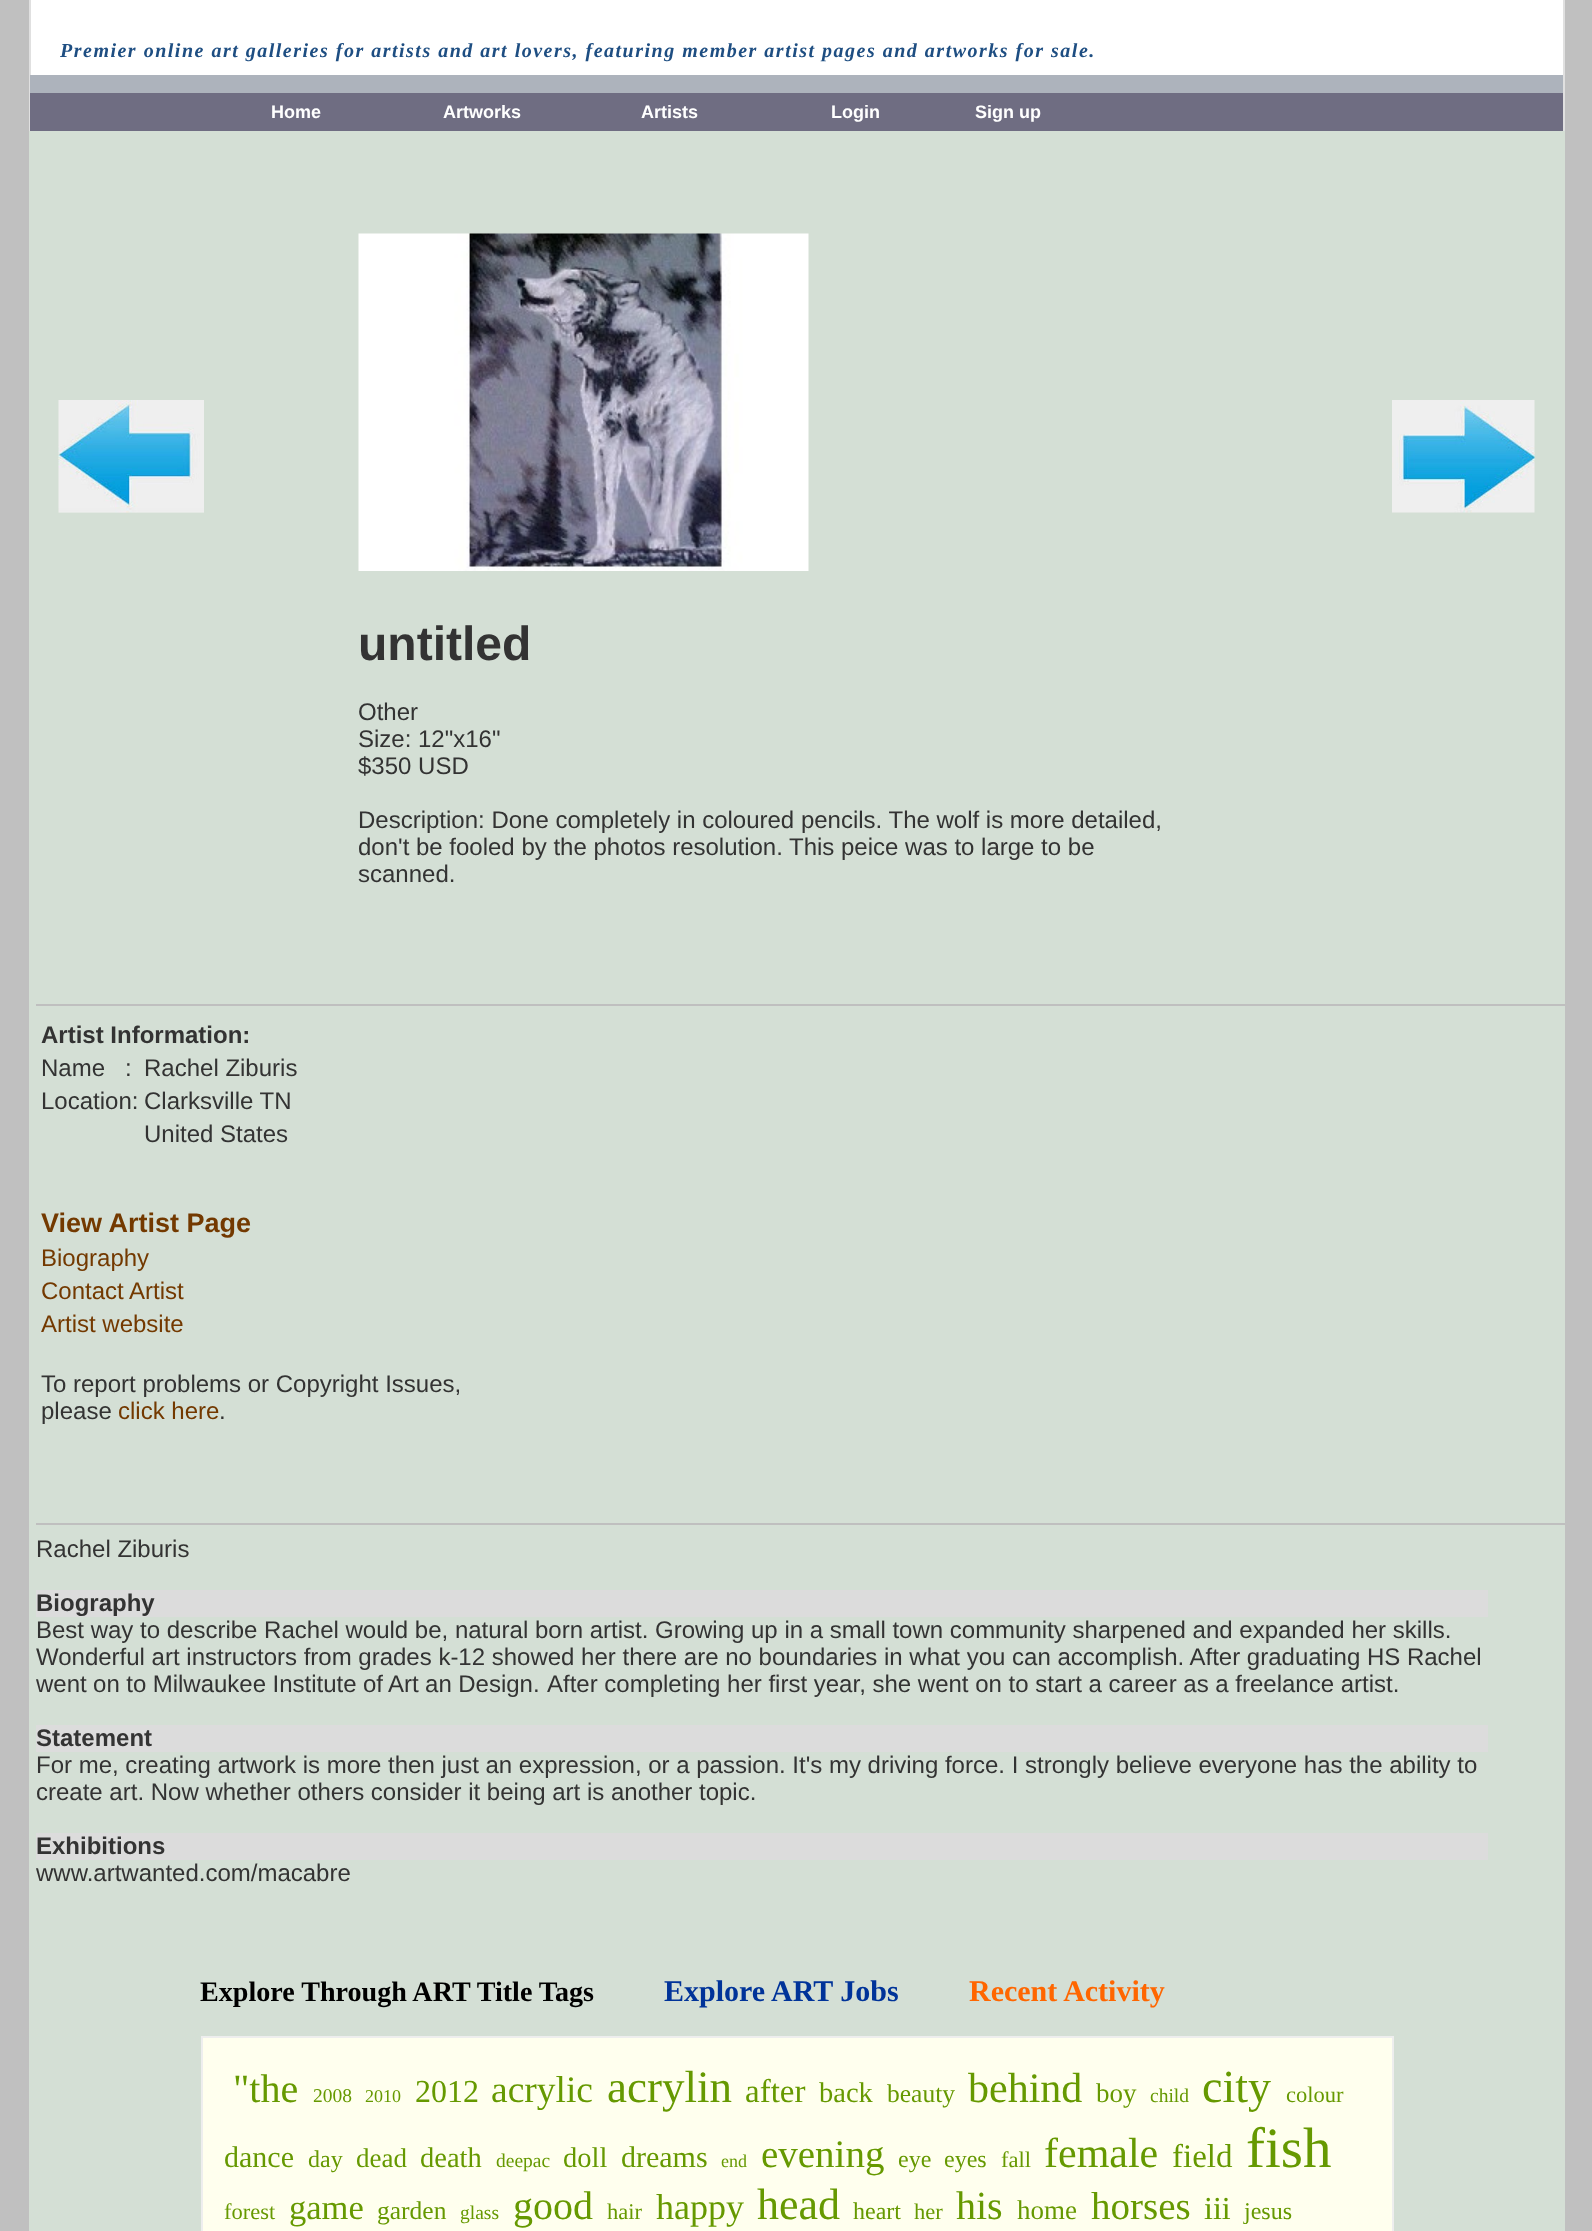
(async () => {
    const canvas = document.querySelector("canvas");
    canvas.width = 1592;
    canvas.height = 2231;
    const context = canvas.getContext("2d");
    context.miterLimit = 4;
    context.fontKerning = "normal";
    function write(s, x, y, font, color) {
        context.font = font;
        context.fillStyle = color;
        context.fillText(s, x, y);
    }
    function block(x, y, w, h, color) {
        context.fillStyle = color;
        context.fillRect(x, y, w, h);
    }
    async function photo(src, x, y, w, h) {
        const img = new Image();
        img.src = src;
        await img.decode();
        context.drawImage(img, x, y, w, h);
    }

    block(0, 0, 1592, 2231, "rgb(192, 192, 192)");
    block(31, 0, 1532, 75, "rgb(255, 255, 255)");
    block(29, 0, 2, 131, "rgb(224, 224, 224)");
    context.letterSpacing = "1.5px";
    write("Premier online art galleries for artists and art lovers, featuring member artist pages and artworks for sale.", 60, 57, "italic bold 20px Liberation Serif", "rgb(30, 78, 130)");
    block(30, 75, 1533, 18, "rgb(173, 179, 188)");
    block(30, 93, 1533, 38, "rgb(111, 109, 130)");
    context.letterSpacing = "0px";
    write("Home", 271, 118, "bold 18px Liberation Sans", "rgb(255, 255, 255)");
    write("Artworks", 443, 118, "bold 18px Liberation Sans", "rgb(255, 255, 255)");
    write("Artists", 641, 118, "bold 18px Liberation Sans", "rgb(255, 255, 255)");
    write("Login", 831, 118, "bold 18px Liberation Sans", "rgb(255, 255, 255)");
    write("Sign up", 975, 118, "bold 18px Liberation Sans", "rgb(255, 255, 255)");
    block(1563, 0, 2, 131, "rgb(224, 224, 224)");
    block(29, 131, 1536, 2100, "rgb(212, 223, 213)");
    await photo("media/1.png", 58, 400, 146, 113);
    await photo("media/2.png", 1392, 400, 143, 113);
    await photo("media/3.png", 358, 233, 451, 338);
    write("untitled", 358, 660, "bold 48px Liberation Sans", "rgb(51, 51, 51)");
    write("Other", 358, 720, "24px Liberation Sans", "rgb(51, 51, 51)");
    write("Size: 12\"x16\"", 358, 747, "24px Liberation Sans", "rgb(51, 51, 51)");
    write("$350 USD", 358, 774, "24px Liberation Sans", "rgb(51, 51, 51)");
    write("Description: Done completely in coloured pencils. The wolf is more detailed,", 358, 828, "24px Liberation Sans", "rgb(51, 51, 51)");
    write("don't be fooled by the photos resolution.", 358, 855, "24px Liberation Sans", "rgb(51, 51, 51)");
    write("This peice was to large to be", 789, 855, "24px Liberation Sans", "rgb(51, 51, 51)");
    write("scanned.", 358, 882, "24px Liberation Sans", "rgb(51, 51, 51)");
    block(36, 1004, 1529, 2, "rgb(191, 191, 191)");
    write("Artist Information:", 41, 1043, "bold 24px Liberation Sans", "rgb(51, 51, 51)");
    write("Name   :", 41, 1076, "24px Liberation Sans", "rgb(51, 51, 51)");
    write("Rachel Ziburis", 144, 1076, "24px Liberation Sans", "rgb(51, 51, 51)");
    write("Location:", 41, 1109, "24px Liberation Sans", "rgb(51, 51, 51)");
    write("Clarksville TN", 144, 1109, "24px Liberation Sans", "rgb(51, 51, 51)");
    write("United States", 144, 1142, "24px Liberation Sans", "rgb(51, 51, 51)");
    write("View Artist Page", 41, 1232, "bold 27px Liberation Sans", "rgb(115, 57, 0)");
    write("Biography", 41, 1266, "24px Liberation Sans", "rgb(115, 57, 0)");
    write("Contact Artist", 41, 1299, "24px Liberation Sans", "rgb(115, 57, 0)");
    write("Artist website", 41, 1332, "24px Liberation Sans", "rgb(115, 57, 0)");
    write("To report problems or Copyright Issues,", 41, 1392, "24px Liberation Sans", "rgb(51, 51, 51)");
    write("please", 41, 1419, "24px Liberation Sans", "rgb(51, 51, 51)");
    write("click here", 118, 1419, "24px Liberation Sans", "rgb(115, 57, 0)");
    write(".", 219, 1419, "24px Liberation Sans", "rgb(51, 51, 51)");
    block(36, 1523, 1529, 2, "rgb(191, 191, 191)");
    write("Rachel Ziburis", 36, 1557, "24px Liberation Sans", "rgb(51, 51, 51)");
    block(36, 1590, 1452, 27, "rgb(220, 220, 220)");
    write("Biography", 36, 1611, "bold 24px Liberation Sans", "rgb(51, 51, 51)");
    write("Best way to describe Rachel would be, natural born artist. Growing up in a small town community sharpened and expanded her skills.", 36, 1638, "24px Liberation Sans", "rgb(51, 51, 51)");
    write("Wonderful art instructors from grades k-12 showed her there are no boundaries in what you can accomplish. After graduating HS Rachel", 36, 1665, "24px Liberation Sans", "rgb(51, 51, 51)");
    context.wordSpacing = "-0.25px";
    write("went on to Milwaukee Institute of Art an Design.", 36, 1692, "24px Liberation Sans", "rgb(51, 51, 51)");
    context.wordSpacing = "0px";
    write("After completing her first year, she went on to start a career as a freelance artist.", 547, 1692, "24px Liberation Sans", "rgb(51, 51, 51)");
    block(36, 1725, 1452, 27, "rgb(220, 220, 220)");
    write("Statement", 36, 1746, "bold 24px Liberation Sans", "rgb(51, 51, 51)");
    write("For me, creating artwork is more then just an expression, or a passion. It's my driving force. I strongly believe everyone has the ability to", 36, 1773, "24px Liberation Sans", "rgb(51, 51, 51)");
    write("create art. Now whether others consider it being art is another topic.", 36, 1800, "24px Liberation Sans", "rgb(51, 51, 51)");
    block(36, 1833, 1452, 27, "rgb(220, 220, 220)");
    write("Exhibitions", 36, 1854, "bold 24px Liberation Sans", "rgb(51, 51, 51)");
    write("www.artwanted.com/macabre", 36, 1881, "24px Liberation Sans", "rgb(51, 51, 51)");
    write("Explore Through ART Title Tags", 200, 2001, "bold 28.1px Liberation Serif", "rgb(0, 0, 0)");
    write("Explore ART Jobs", 664, 2001, "bold 30px Liberation Serif", "rgb(0, 51, 153)");
    write("Recent Activity", 969, 2001, "bold 30px Liberation Serif", "rgb(255, 102, 0)");
    context.fillStyle = "rgb(255, 255, 238)";
    context.beginPath();
    context.rect(202, 2037, 1191, 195);
    context.fill();
    context.strokeStyle = "rgb(238, 238, 238)";
    context.lineWidth = 2;
    context.stroke();
    write("\"the", 233, 2102, "40px Liberation Serif", "rgb(102, 153, 0)");
    write("2008", 313, 2102, "19.5px Liberation Serif", "rgb(102, 153, 0)");
    write("2010", 365, 2102, "18px Liberation Serif", "rgb(102, 153, 0)");
    write("2012", 415, 2102, "32px Liberation Serif", "rgb(102, 153, 0)");
    write("acrylic", 491, 2102, "37.5px Liberation Serif", "rgb(102, 153, 0)");
    write("acrylin", 607, 2102, "45px Liberation Serif", "rgb(102, 153, 0)");
    write("after", 745, 2102, "33px Liberation Serif", "rgb(102, 153, 0)");
    write("back", 819, 2102, "28.5px Liberation Serif", "rgb(102, 153, 0)");
    write("beauty", 887, 2102, "25.5px Liberation Serif", "rgb(102, 153, 0)");
    write("behind", 968, 2102, "42px Liberation Serif", "rgb(102, 153, 0)");
    write("boy", 1096, 2102, "27px Liberation Serif", "rgb(102, 153, 0)");
    write("child", 1150, 2102, "19.5px Liberation Serif", "rgb(102, 153, 0)");
    write("city", 1202, 2102, "46px Liberation Serif", "rgb(102, 153, 0)");
    write("colour", 1286, 2102, "22.5px Liberation Serif", "rgb(102, 153, 0)");
    write("dance", 224, 2167, "30px Liberation Serif", "rgb(102, 153, 0)");
    write("day", 308, 2167, "24px Liberation Serif", "rgb(102, 153, 0)");
    write("dead", 356, 2167, "27px Liberation Serif", "rgb(102, 153, 0)");
    write("death", 420, 2167, "28.5px Liberation Serif", "rgb(102, 153, 0)");
    write("deepac", 496, 2167, "19.5px Liberation Serif", "rgb(102, 153, 0)");
    write("doll", 563, 2167, "28.5px Liberation Serif", "rgb(102, 153, 0)");
    write("dreams", 621, 2167, "30px Liberation Serif", "rgb(102, 153, 0)");
    write("end", 721, 2167, "18px Liberation Serif", "rgb(102, 153, 0)");
    write("evening", 761, 2167, "39px Liberation Serif", "rgb(102, 153, 0)");
    write("eye", 898, 2167, "24px Liberation Serif", "rgb(102, 153, 0)");
    write("eyes", 944, 2167, "24px Liberation Serif", "rgb(102, 153, 0)");
    write("fall", 1001, 2167, "22.5px Liberation Serif", "rgb(102, 153, 0)");
    write("female", 1044, 2167, "42px Liberation Serif", "rgb(102, 153, 0)");
    write("field", 1172, 2167, "33px Liberation Serif", "rgb(102, 153, 0)");
    write("fish", 1246, 2167, "57px Liberation Serif", "rgb(102, 153, 0)");
    write("forest", 224, 2219, "22.5px Liberation Serif", "rgb(102, 153, 0)");
    write("game", 289, 2219, "34.5px Liberation Serif", "rgb(102, 153, 0)");
    write("garden", 377, 2219, "25.5px Liberation Serif", "rgb(102, 153, 0)");
    write("glass", 460, 2219, "19.5px Liberation Serif", "rgb(102, 153, 0)");
    write("good", 513, 2219, "40px Liberation Serif", "rgb(102, 153, 0)");
    write("hair", 607, 2219, "22.5px Liberation Serif", "rgb(102, 153, 0)");
    write("happy", 656, 2219, "36px Liberation Serif", "rgb(102, 153, 0)");
    write("head", 757, 2219, "44px Liberation Serif", "rgb(102, 153, 0)");
    write("heart", 853, 2219, "24px Liberation Serif", "rgb(102, 153, 0)");
    write("her", 914, 2219, "22.5px Liberation Serif", "rgb(102, 153, 0)");
    write("his", 956, 2219, "40px Liberation Serif", "rgb(102, 153, 0)");
    write("home", 1017, 2219, "27px Liberation Serif", "rgb(102, 153, 0)");
    write("horses", 1091, 2219, "39px Liberation Serif", "rgb(102, 153, 0)");
    write("iii", 1204, 2219, "32px Liberation Serif", "rgb(102, 153, 0)");
    write("jesus", 1244, 2219, "24px Liberation Serif", "rgb(102, 153, 0)");
})();
